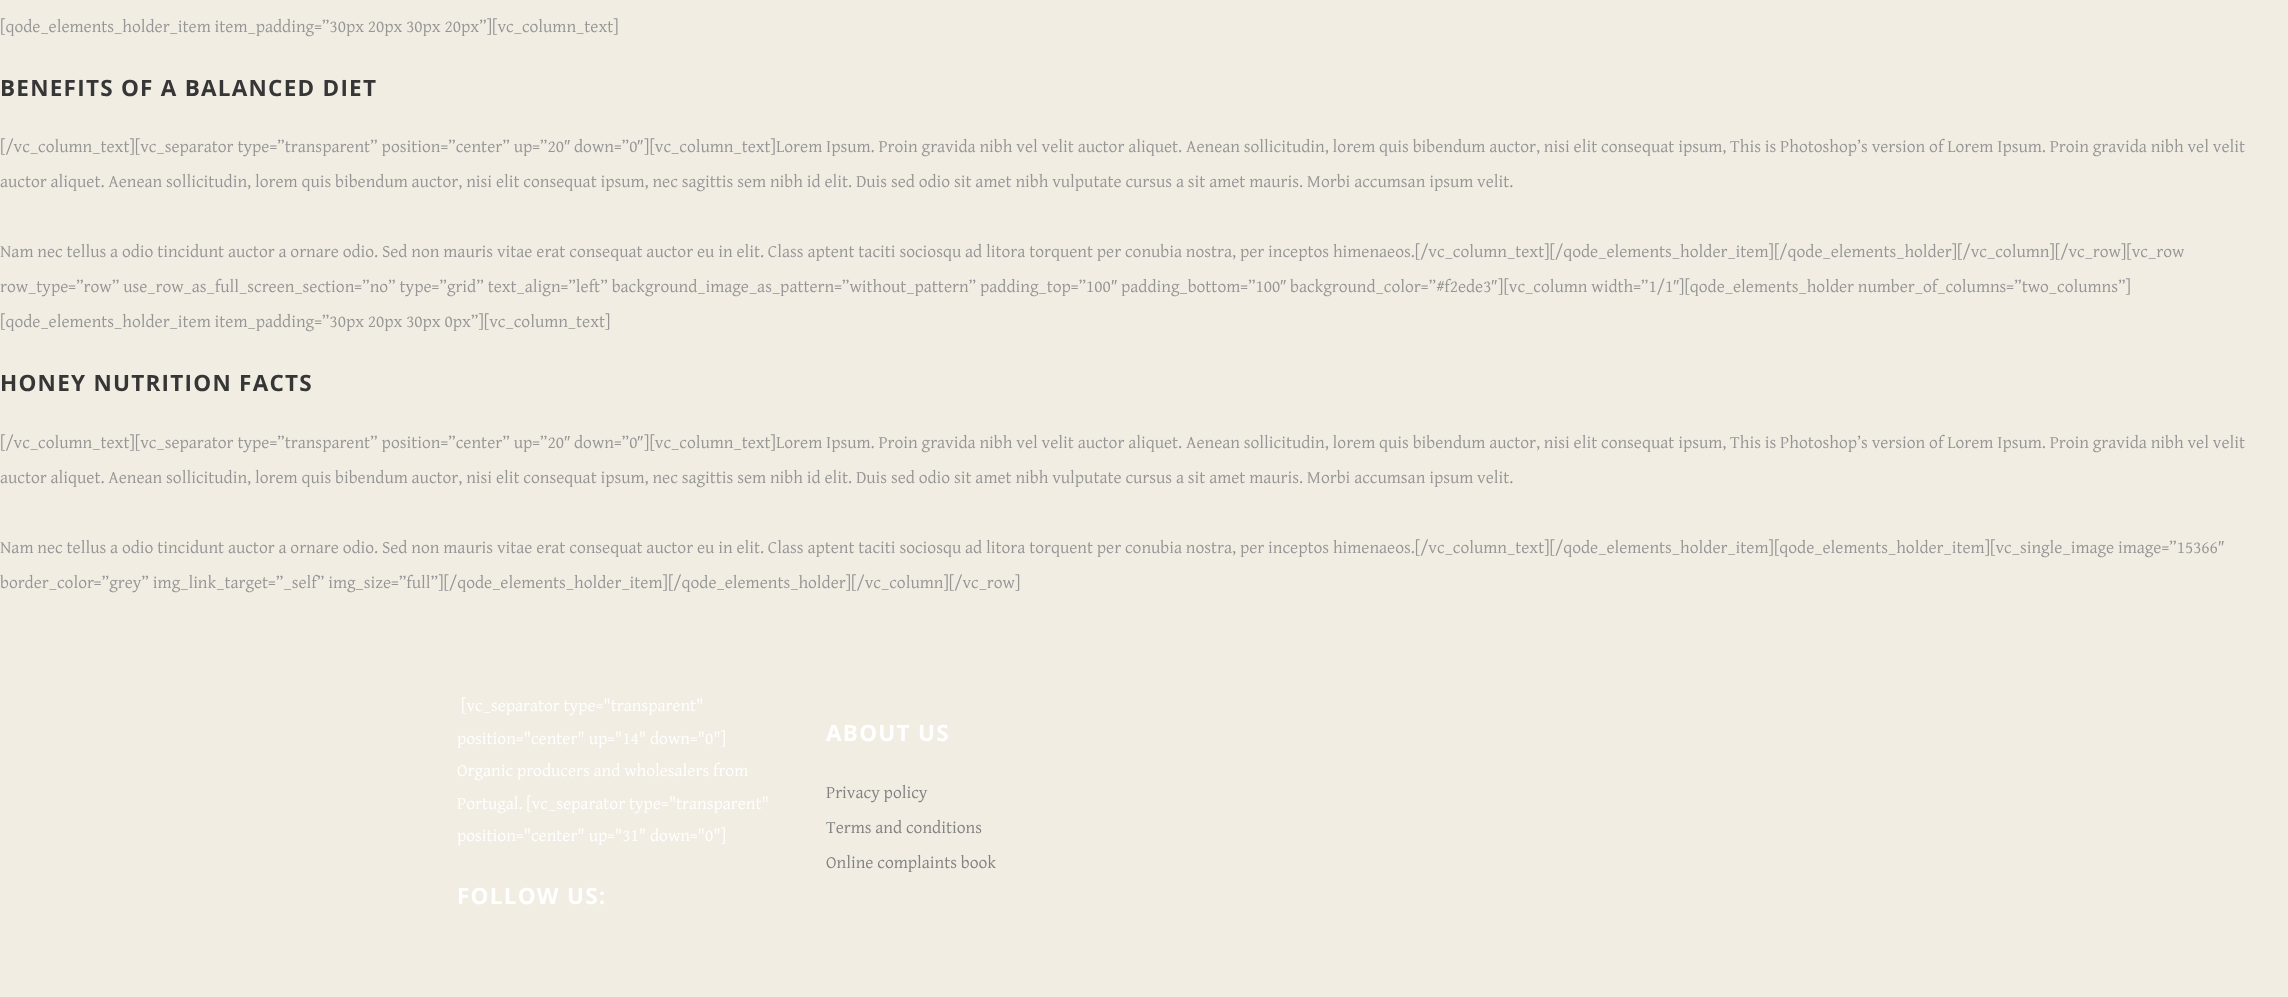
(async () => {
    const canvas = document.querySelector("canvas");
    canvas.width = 2288;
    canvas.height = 997;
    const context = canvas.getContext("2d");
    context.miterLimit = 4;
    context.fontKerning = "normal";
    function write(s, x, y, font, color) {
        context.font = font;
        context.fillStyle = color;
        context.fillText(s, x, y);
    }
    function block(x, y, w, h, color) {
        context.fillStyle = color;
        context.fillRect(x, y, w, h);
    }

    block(0, 0, 2288, 997, "rgb(242, 237, 227)");
    write("[qode_elements_holder_item item_padding=”30px 20px 30px 20px”][vc_column_text]", 0, 32, "17.5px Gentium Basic", "rgb(149, 149, 149)");
    context.letterSpacing = "1.25px";
    write("BENEFITS OF A BALANCED DIET", 0, 96, "bold 22.5px Open Sans", "rgb(54, 54, 54)");
    context.letterSpacing = "0px";
    write("[/vc_column_text][vc_separator type=”transparent” position=”center” up=”20", 0, 152, "17.5px Gentium Basic", "rgb(149, 149, 149)");
    write("″", 564, 152, "17.5px Liberation Sans", "rgb(149, 149, 149)");
    write("down=”0", 574, 152, "17.5px Gentium Basic", "rgb(149, 149, 149)");
    write("″", 637, 152, "17.5px Liberation Sans", "rgb(149, 149, 149)");
    write("][vc_column_text]Lorem Ipsum. Proin gravida nibh vel velit auctor aliquet. Aenean sollicitudin, lorem quis bibendum auctor, nisi elit consequat ipsum, This is Photoshop’s version of Lorem Ipsum. Proin gravida nibh vel velit", 644, 152, "17.5px Gentium Basic", "rgb(149, 149, 149)");
    write("auctor aliquet. Aenean sollicitudin, lorem quis bibendum auctor, nisi elit consequat ipsum, nec sagittis sem nibh id elit. Duis sed odio sit amet nibh vulputate cursus a sit amet mauris. Morbi accumsan ipsum velit.", 0, 187, "17.5px Gentium Basic", "rgb(149, 149, 149)");
    write("Nam nec tellus a odio tincidunt auctor a ornare odio. Sed non mauris vitae erat consequat auctor eu in elit. Class aptent taciti sociosqu ad litora torquent per conubia nostra, per inceptos himenaeos.[/vc_column_text][/qode_elements_holder_item][/qode_elements_holder][/vc_column][/vc_row][vc_row", 0, 257, "17.5px Gentium Basic", "rgb(149, 149, 149)");
    write("row_type=”row” use_row_as_full_screen_section=”no” type=”grid” text_align=”left” background_image_as_pattern=”without_pattern” padding_top=”100", 0, 292, "17.5px Gentium Basic", "rgb(149, 149, 149)");
    write("″", 1111, 292, "17.5px Liberation Sans", "rgb(149, 149, 149)");
    write("padding_bottom=”100", 1121, 292, "17.5px Gentium Basic", "rgb(149, 149, 149)");
    write("″", 1280, 292, "17.5px Liberation Sans", "rgb(149, 149, 149)");
    write("background_color=”#f2ede3", 1290, 292, "17.5px Gentium Basic", "rgb(149, 149, 149)");
    write("″", 1491, 292, "17.5px Liberation Sans", "rgb(149, 149, 149)");
    write("][vc_column width=”1/1", 1498, 292, "17.5px Gentium Basic", "rgb(149, 149, 149)");
    write("″", 1673, 292, "17.5px Liberation Sans", "rgb(149, 149, 149)");
    write("][qode_elements_holder number_of_columns=”two_columns”]", 1679, 292, "17.5px Gentium Basic", "rgb(149, 149, 149)");
    write("[qode_elements_holder_item item_padding=”30px 20px 30px 0px”][vc_column_text]", 0, 327, "17.5px Gentium Basic", "rgb(149, 149, 149)");
    context.letterSpacing = "1.25px";
    write("HONEY NUTRITION FACTS", 0, 391, "bold 22.5px Open Sans", "rgb(54, 54, 54)");
    context.letterSpacing = "0px";
    write("[/vc_column_text][vc_separator type=”transparent” position=”center” up=”20", 0, 448, "17.5px Gentium Basic", "rgb(149, 149, 149)");
    write("″", 564, 448, "17.5px Liberation Sans", "rgb(149, 149, 149)");
    write("down=”0", 574, 448, "17.5px Gentium Basic", "rgb(149, 149, 149)");
    write("″", 637, 448, "17.5px Liberation Sans", "rgb(149, 149, 149)");
    write("][vc_column_text]Lorem Ipsum. Proin gravida nibh vel velit auctor aliquet. Aenean sollicitudin, lorem quis bibendum auctor, nisi elit consequat ipsum, This is Photoshop’s version of Lorem Ipsum. Proin gravida nibh vel velit", 644, 448, "17.5px Gentium Basic", "rgb(149, 149, 149)");
    write("auctor aliquet. Aenean sollicitudin, lorem quis bibendum auctor, nisi elit consequat ipsum, nec sagittis sem nibh id elit. Duis sed odio sit amet nibh vulputate cursus a sit amet mauris. Morbi accumsan ipsum velit.", 0, 483, "17.5px Gentium Basic", "rgb(149, 149, 149)");
    write("Nam nec tellus a odio tincidunt auctor a ornare odio. Sed non mauris vitae erat consequat auctor eu in elit. Class aptent taciti sociosqu ad litora torquent per conubia nostra, per inceptos himenaeos.[/vc_column_text][/qode_elements_holder_item][qode_elements_holder_item][vc_single_image image=”15366", 0, 553, "17.5px Gentium Basic", "rgb(149, 149, 149)");
    write("″", 2218, 553, "17.5px Liberation Sans", "rgb(149, 149, 149)");
    write("border_color=”grey” img_link_target=”_self” img_size=”full”][/qode_elements_holder_item][/qode_elements_holder][/vc_column][/vc_row]", 0, 588, "17.5px Gentium Basic", "rgb(149, 149, 149)");
    write("[vc_separator type=\"transparent\"", 461, 711, "17.5px Gentium Basic", "rgb(255, 255, 255)");
    write("position=\"center\" up=\"14\" down=\"0\"]", 457, 744, "17.5px Gentium Basic", "rgb(255, 255, 255)");
    write("Organic producers and wholesalers from", 457, 776, "17.5px Gentium Basic", "rgb(255, 255, 255)");
    write("Portugal. [vc_separator type=\"transparent\"", 457, 809, "17.5px Gentium Basic", "rgb(255, 255, 255)");
    write("position=\"center\" up=\"31\" down=\"0\"]", 457, 841, "17.5px Gentium Basic", "rgb(255, 255, 255)");
    context.letterSpacing = "1.25px";
    write("FOLLOW US:", 457, 904, "bold 22.5px Open Sans", "rgb(255, 255, 255)");
    write("ABOUT US", 826, 741, "bold 22.5px Open Sans", "rgb(255, 255, 255)");
    context.letterSpacing = "0px";
    write("Privacy policy", 826, 798, "17.5px Gentium Basic", "rgb(129, 129, 129)");
    write("Terms and conditions", 826, 833, "17.5px Gentium Basic", "rgb(129, 129, 129)");
    write("Online complaints book", 826, 868, "17.5px Gentium Basic", "rgb(129, 129, 129)");
})();
